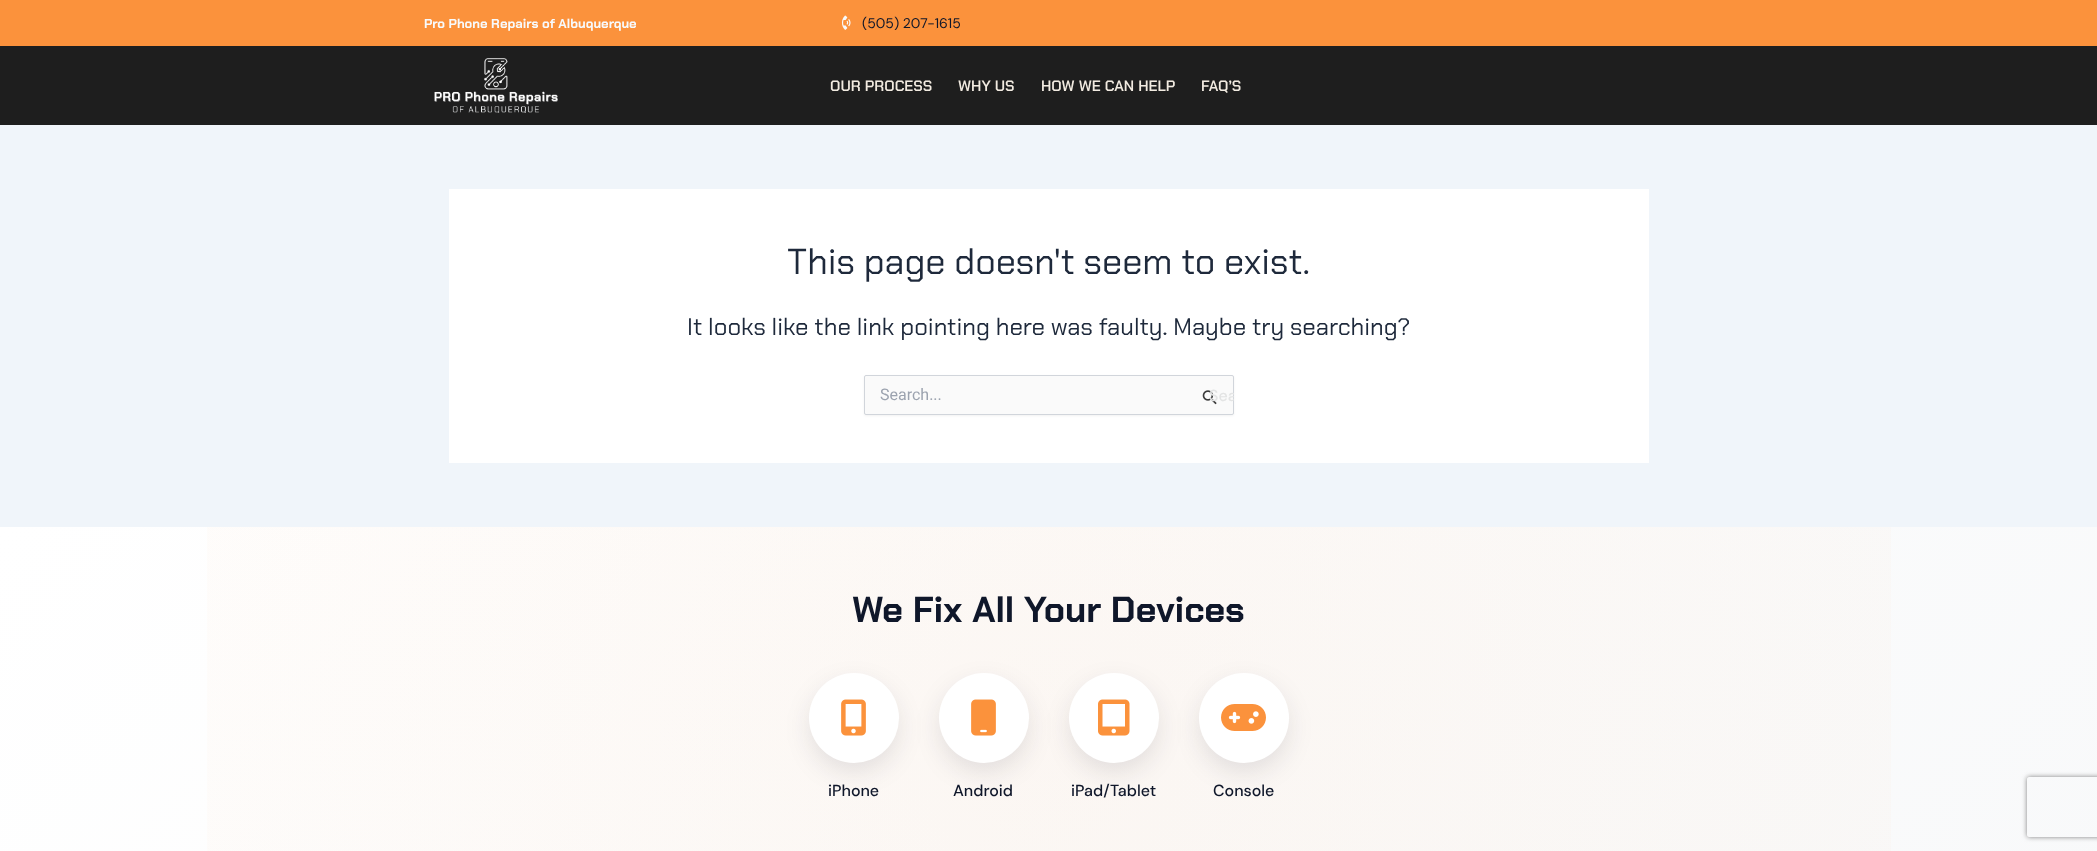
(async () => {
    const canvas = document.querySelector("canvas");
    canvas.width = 2097;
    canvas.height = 851;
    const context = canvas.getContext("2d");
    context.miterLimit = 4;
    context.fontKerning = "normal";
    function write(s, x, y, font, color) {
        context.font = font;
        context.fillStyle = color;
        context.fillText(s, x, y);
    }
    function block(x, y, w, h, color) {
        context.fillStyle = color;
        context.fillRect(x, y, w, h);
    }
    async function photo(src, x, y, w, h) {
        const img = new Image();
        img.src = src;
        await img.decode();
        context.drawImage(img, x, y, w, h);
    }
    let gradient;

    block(0, 0, 2097, 851, "rgb(240, 245, 250)");
    block(0, 0, 2097, 46, "rgb(251, 146, 60)");
    write("Pro Phone Repairs of Albuquerque", 424, 28, "bold 13px Chakra Petch", "rgb(248, 250, 252)");
    await photo("media/1.png", 841, 15, 10, 15);
    write("(505) 207-1615", 862, 28, "14px DM Sans", "rgb(15, 23, 42)");
    block(0, 46, 2097, 79, "rgb(30, 30, 30)");
    await photo("media/2.png", 434, 58, 124, 55);
    write("OUR PROCESS", 830, 91, "600 15px Chakra Petch", "rgb(242, 235, 225)");
    write("WHY US", 958, 91, "600 15px Chakra Petch", "rgb(242, 235, 225)");
    write("HOW WE CAN HELP", 1041, 91, "600 15px Chakra Petch", "rgb(242, 235, 225)");
    write("FAQ’S", 1201, 91, "600 15px Chakra Petch", "rgb(242, 235, 225)");
    block(449, 189, 1200, 274, "rgb(255, 255, 255)");
    write("This page doesn't seem to exist.", 787, 274, "36px Chakra Petch", "rgb(30, 41, 59)");
    write("It looks like the link pointing here was faulty. Maybe try searching?", 687, 335, "24px Chakra Petch", "rgb(30, 41, 59)");
    context.fillStyle = "rgba(0, 0, 0, 0.05)";
    context.filter = "blur(1px)";
    context.beginPath();
    context.roundRect(864, 376, 370, 40, 2);
    context.fill();
    context.filter = "none";
    context.fillStyle = "rgb(250, 250, 250)";
    context.beginPath();
    context.roundRect(864.5, 375.5, 369, 39, 1.5);
    context.fill();
    context.strokeStyle = "rgb(209, 213, 219)";
    context.stroke();
    write("Search...", 880, 400, "16px Roboto", "rgb(156, 163, 175)");
    await photo("media/3.png", 1202, 390, 15, 15);
    context.save();
    context.beginPath();
    context.roundRect(1189, 375, 45, 42, 2);
    context.clip();
    write("Sea", 1209, 401, "500 16px DM Sans", "rgb(227, 228, 228)");
    context.restore();
    gradient = context.createLinearGradient(412, 115, 1685, 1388);
    gradient.addColorStop(0, "rgb(255, 255, 255)");
    gradient.addColorStop(1, "rgb(248, 249, 250)");
    context.fillStyle = gradient;
    context.fillRect(0, 527, 2097, 324);
    gradient = context.createRadialGradient(1049, 752, 0, 1049, 752, 2145);
    gradient.addColorStop(0, "rgba(251, 146, 60, 0.05)");
    gradient.addColorStop(0.7, "rgba(251, 146, 60, 0)");
    context.fillStyle = gradient;
    context.fillRect(207, 527, 1684, 324);
    write("We Fix All Your Devices", 852, 622, "bold 36px Chakra Petch", "rgb(15, 23, 42)");
    context.fillStyle = "rgba(15, 23, 42, 0.1)";
    context.filter = "blur(12.5px)";
    context.beginPath();
    context.roundRect(809, 683, 90, 90, 45);
    context.fill();
    context.filter = "none";
    context.fillStyle = "rgb(255, 255, 255)";
    context.beginPath();
    context.arc(854, 718, 45, 0, Math.PI * 2);
    context.fill();
    await photo("media/4.png", 841, 699, 25, 37);
    write("iPhone", 828, 796, "500 16px DM Sans", "rgb(15, 23, 42)");
    context.fillStyle = "rgba(15, 23, 42, 0.1)";
    context.filter = "blur(12.5px)";
    context.beginPath();
    context.roundRect(939, 683, 90, 90, 45);
    context.fill();
    context.filter = "none";
    context.fillStyle = "rgb(255, 255, 255)";
    context.beginPath();
    context.arc(984, 718, 45, 0, Math.PI * 2);
    context.fill();
    await photo("media/5.png", 971, 699, 25, 37);
    write("Android", 953, 796, "500 16px DM Sans", "rgb(15, 23, 42)");
    context.fillStyle = "rgba(15, 23, 42, 0.1)";
    context.filter = "blur(12.5px)";
    context.beginPath();
    context.roundRect(1069, 683, 90, 90, 45);
    context.fill();
    context.filter = "none";
    context.fillStyle = "rgb(255, 255, 255)";
    context.beginPath();
    context.arc(1114, 718, 45, 0, Math.PI * 2);
    context.fill();
    await photo("media/6.png", 1098, 699, 32, 37);
    write("iPad/Tablet", 1071, 796, "500 16px DM Sans", "rgb(15, 23, 42)");
    context.fillStyle = "rgba(15, 23, 42, 0.1)";
    context.filter = "blur(12.5px)";
    context.beginPath();
    context.roundRect(1199, 683, 90, 90, 45);
    context.fill();
    context.filter = "none";
    context.fillStyle = "rgb(255, 255, 255)";
    context.beginPath();
    context.arc(1244, 718, 45, 0, Math.PI * 2);
    context.fill();
    await photo("media/7.png", 1221, 704, 45, 27);
    write("Console", 1213, 796, "500 16px DM Sans", "rgb(15, 23, 42)");
    context.save();
    context.beginPath();
    context.moveTo(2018, 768);
    context.lineTo(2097, 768);
    context.lineTo(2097, 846);
    context.lineTo(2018, 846);
    context.closePath();
    context.moveTo(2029, 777);
    context.lineTo(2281, 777);
    context.bezierCurveTo(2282, 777, 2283, 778, 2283, 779);
    context.lineTo(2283, 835);
    context.bezierCurveTo(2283, 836, 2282, 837, 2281, 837);
    context.lineTo(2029, 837);
    context.bezierCurveTo(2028, 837, 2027, 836, 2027, 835);
    context.lineTo(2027, 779);
    context.bezierCurveTo(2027, 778, 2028, 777, 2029, 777);
    context.closePath();
    context.clip("evenodd");
    context.fillStyle = "rgb(128, 128, 128)";
    context.filter = "blur(2.5px)";
    context.beginPath();
    context.roundRect(2027, 777, 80, 60, 2);
    context.fill();
    context.filter = "none";
    context.restore();
})();
